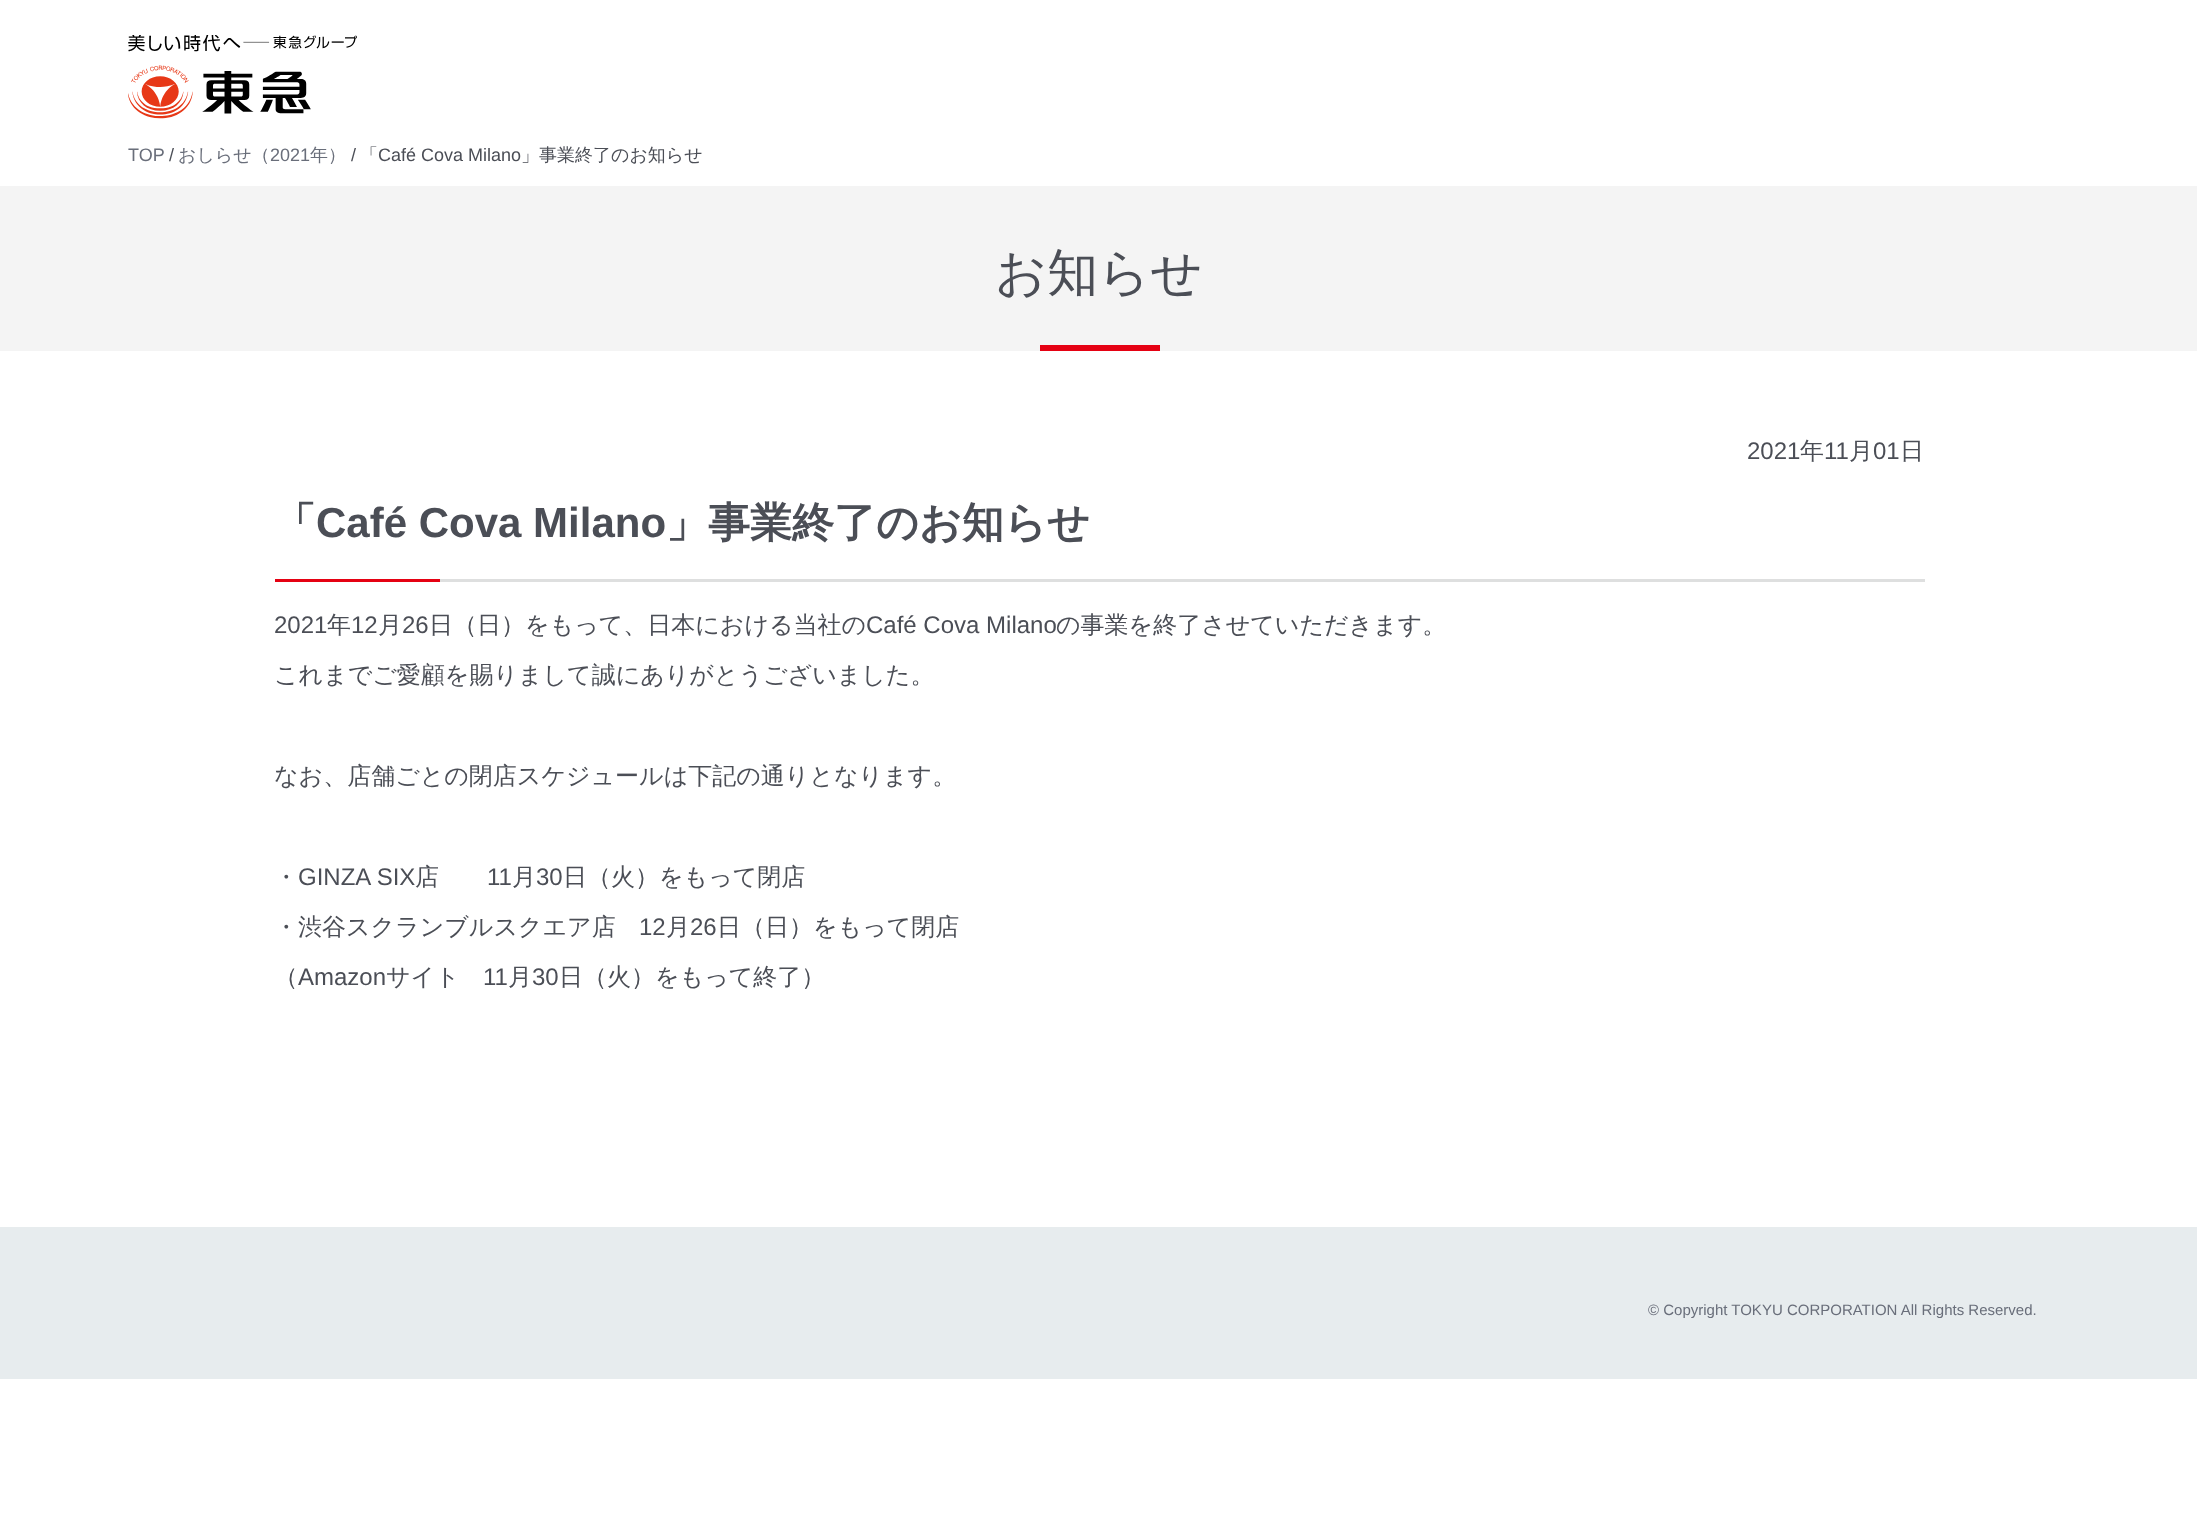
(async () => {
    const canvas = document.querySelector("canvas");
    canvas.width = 2197;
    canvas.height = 1533;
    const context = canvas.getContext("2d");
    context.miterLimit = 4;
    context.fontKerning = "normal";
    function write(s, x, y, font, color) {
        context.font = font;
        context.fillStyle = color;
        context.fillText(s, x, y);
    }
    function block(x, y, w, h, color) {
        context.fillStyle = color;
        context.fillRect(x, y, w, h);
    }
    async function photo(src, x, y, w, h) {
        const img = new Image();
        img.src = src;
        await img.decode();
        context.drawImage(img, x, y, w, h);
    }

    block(0, 0, 2197, 1533, "rgb(255, 255, 255)");
    await photo("media/1.png", 128, 35, 229, 84);
    write("TOP", 128, 161, "18px Liberation Sans", "rgb(105, 110, 122)");
    write("/", 169, 161, "18px Liberation Sans", "rgb(75, 78, 86)");
    write("おしらせ（", 178, 161, "500 18px WenQuanYi Zen Hei", "rgb(105, 110, 122)");
    write("2021", 270, 161, "18px Liberation Sans", "rgb(105, 110, 122)");
    write("年）", 310, 161, "500 18px WenQuanYi Zen Hei", "rgb(105, 110, 122)");
    write("/", 351, 161, "18px Liberation Sans", "rgb(75, 78, 86)");
    write("「", 360, 161, "500 18px WenQuanYi Zen Hei", "rgb(75, 78, 86)");
    write("Café Cova Milano", 378, 161, "18px Liberation Sans", "rgb(75, 78, 86)");
    write("」事業終了のお知らせ", 521, 161, "500 18px WenQuanYi Zen Hei", "rgb(75, 78, 86)");
    block(0, 186, 2197, 165, "rgb(244, 244, 244)");
    write("お知らせ", 995, 290, "500 51px WenQuanYi Zen Hei", "rgb(75, 78, 86)");
    block(1040, 345, 120, 6, "rgb(229, 1, 19)");
    write("2021", 1747, 459, "24px Liberation Sans", "rgb(75, 78, 86)");
    write("年", 1800, 459, "500 24px WenQuanYi Zen Hei", "rgb(75, 78, 86)");
    write("11", 1824, 459, "24px Liberation Sans", "rgb(75, 78, 86)");
    write("月", 1849, 459, "500 24px WenQuanYi Zen Hei", "rgb(75, 78, 86)");
    write("01", 1873, 459, "24px Liberation Sans", "rgb(75, 78, 86)");
    write("日", 1900, 459, "500 24px WenQuanYi Zen Hei", "rgb(75, 78, 86)");
    block(440, 579, 1485, 3, "rgb(222, 223, 223)");
    write("「", 274, 537, "bold 42px WenQuanYi Zen Hei", "rgb(75, 78, 86)");
    write("Café Cova Milano", 316, 537, "bold 42px Liberation Sans", "rgb(75, 78, 86)");
    write("」事業終了のお知らせ", 666, 537, "bold 42px WenQuanYi Zen Hei", "rgb(75, 78, 86)");
    block(275, 579, 165, 3, "rgb(229, 1, 19)");
    write("2021", 274, 633, "24px Liberation Sans", "rgb(75, 78, 86)");
    write("年", 327, 633, "500 24px WenQuanYi Zen Hei", "rgb(75, 78, 86)");
    write("12", 351, 633, "24px Liberation Sans", "rgb(75, 78, 86)");
    write("月", 378, 633, "500 24px WenQuanYi Zen Hei", "rgb(75, 78, 86)");
    write("26", 402, 633, "24px Liberation Sans", "rgb(75, 78, 86)");
    write("日（日）をもって、日本における当社の", 429, 633, "500 24px WenQuanYi Zen Hei", "rgb(75, 78, 86)");
    write("Café Cova Milano", 866, 633, "24px Liberation Sans", "rgb(75, 78, 86)");
    write("の事業を終了させていただきます。", 1056, 633, "500 24px WenQuanYi Zen Hei", "rgb(75, 78, 86)");
    write("これまでご愛顧を賜りまして誠にありがとうございました。", 274, 683, "500 24px WenQuanYi Zen Hei", "rgb(75, 78, 86)");
    write("なお、店舗ごとの閉店スケジュールは下記の通りとなります。", 274, 784, "500 24px WenQuanYi Zen Hei", "rgb(75, 78, 86)");
    write("・", 274, 885, "500 24px WenQuanYi Zen Hei", "rgb(75, 78, 86)");
    write("GINZA SIX", 298, 885, "24px Liberation Sans", "rgb(75, 78, 86)");
    write("店", 415, 885, "500 24px WenQuanYi Zen Hei", "rgb(75, 78, 86)");
    write("11", 487, 885, "24px Liberation Sans", "rgb(75, 78, 86)");
    write("月", 512, 885, "500 24px WenQuanYi Zen Hei", "rgb(75, 78, 86)");
    write("30", 536, 885, "24px Liberation Sans", "rgb(75, 78, 86)");
    write("日（火）をもって閉店", 563, 885, "500 24px WenQuanYi Zen Hei", "rgb(75, 78, 86)");
    write("・渋谷スクランブルスクエア店", 274, 935, "500 24px WenQuanYi Zen Hei", "rgb(75, 78, 86)");
    write("12", 639, 935, "24px Liberation Sans", "rgb(75, 78, 86)");
    write("月", 666, 935, "500 24px WenQuanYi Zen Hei", "rgb(75, 78, 86)");
    write("26", 690, 935, "24px Liberation Sans", "rgb(75, 78, 86)");
    write("日（日）をもって閉店", 717, 935, "500 24px WenQuanYi Zen Hei", "rgb(75, 78, 86)");
    write("（", 274, 985, "500 24px WenQuanYi Zen Hei", "rgb(75, 78, 86)");
    write("Amazon", 298, 985, "24px Liberation Sans", "rgb(75, 78, 86)");
    write("サイト", 386, 985, "500 24px WenQuanYi Zen Hei", "rgb(75, 78, 86)");
    write("11", 483, 985, "24px Liberation Sans", "rgb(75, 78, 86)");
    write("月", 508, 985, "500 24px WenQuanYi Zen Hei", "rgb(75, 78, 86)");
    write("30", 532, 985, "24px Liberation Sans", "rgb(75, 78, 86)");
    write("日（火）をもって終了）", 559, 985, "500 24px WenQuanYi Zen Hei", "rgb(75, 78, 86)");
    block(0, 1227, 2197, 152, "rgb(231, 236, 238)");
    write("© Copyright TOKYU CORPORATION All Rights Reserved.", 1648, 1315, "15px Liberation Sans", "rgb(105, 110, 122)");
})();
